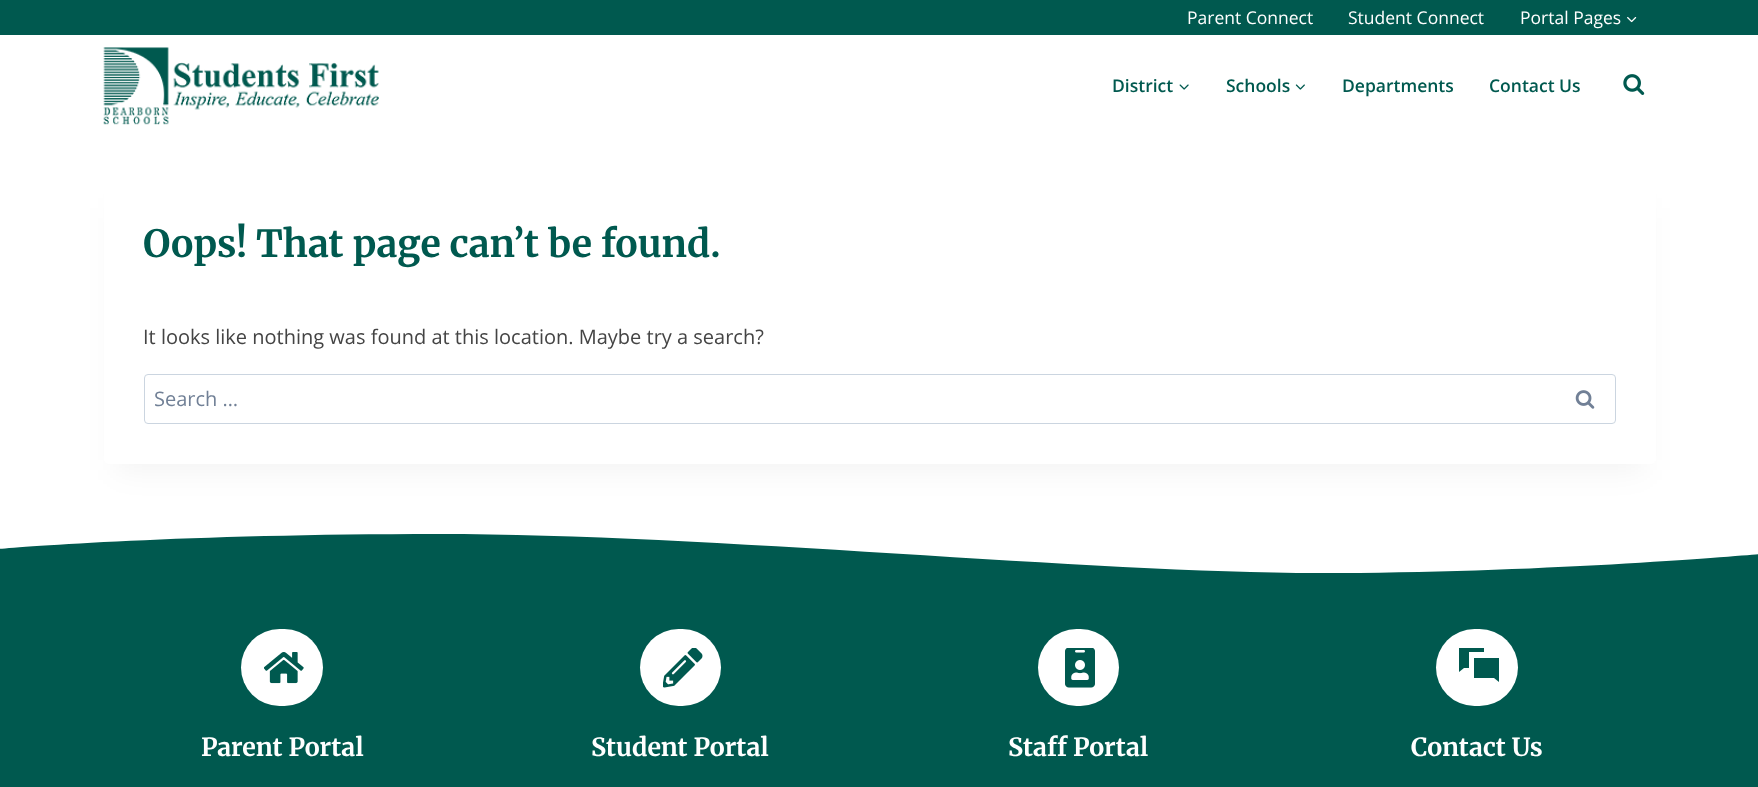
(async () => {
    const canvas = document.querySelector("canvas");
    canvas.width = 1758;
    canvas.height = 787;
    const context = canvas.getContext("2d");
    context.miterLimit = 4;
    context.fontKerning = "normal";
    function write(s, x, y, font, color) {
        context.font = font;
        context.fillStyle = color;
        context.fillText(s, x, y);
    }
    function block(x, y, w, h, color) {
        context.fillStyle = color;
        context.fillRect(x, y, w, h);
    }
    function card(x, y, w, h, r, color) {
        context.fillStyle = color;
        context.beginPath();
        context.roundRect(x, y, w, h, r);
        context.fill();
    }
    async function photo(src, x, y, w, h) {
        const img = new Image();
        img.src = src;
        await img.decode();
        context.drawImage(img, x, y, w, h);
    }

    block(0, 0, 1758, 787, "rgb(255, 255, 255)");
    block(0, 0, 1758, 35, "rgb(0, 89, 79)");
    write("Parent Connect", 1187, 24, "17.5px Open Sans", "rgb(255, 255, 255)");
    write("Student Connect", 1348, 24, "17.5px Open Sans", "rgb(255, 255, 255)");
    write("Portal Pages", 1520, 24, "17.5px Open Sans", "rgb(255, 255, 255)");
    await photo("media/1.png", 1627, 17, 10, 6);
    await photo("media/2.png", 103, 47, 276, 78);
    write("District", 1112, 92, "600 17.5px Open Sans", "rgb(0, 89, 79)");
    await photo("media/3.png", 1179, 84, 10, 6);
    write("Schools", 1226, 92, "600 17.5px Open Sans", "rgb(0, 89, 79)");
    await photo("media/4.png", 1295, 84, 10, 6);
    write("Departments", 1342, 92, "600 17.5px Open Sans", "rgb(0, 89, 79)");
    write("Contact Us", 1489, 92, "600 17.5px Open Sans", "rgb(0, 89, 79)");
    await photo("media/5.png", 1623, 74, 22, 21);
    context.fillStyle = "rgba(0, 0, 0, 0.05)";
    context.filter = "blur(15.5px)";
    context.beginPath();
    context.rect(116, 208, 1528, 262);
    context.fill();
    context.filter = "none";
    card(104, 176, 1552, 288, 5, "rgb(255, 255, 255)");
    write("Oops! That page can’t be found.", 143, 257, "300 37.5px Merriweather", "rgb(0, 89, 79)");
    write("It looks like nothing was found at this location. Maybe try a search?", 143, 344, "20px Open Sans", "rgb(68, 68, 68)");
    context.beginPath();
    context.roundRect(144.5, 374.5, 1471, 49, 3.5);
    context.strokeStyle = "rgb(203, 213, 224)";
    context.stroke();
    write("Search …", 154, 406, "20px Open Sans", "rgb(113, 128, 150)");
    await photo("media/6.png", 1575, 390, 20, 19);
    block(0, 534, 1758, 253, "rgb(0, 89, 79)");
    context.fillStyle = "rgb(255, 255, 255)";
    context.beginPath();
    context.moveTo(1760, 554);
    context.bezierCurveTo(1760, 554, 1548, 573, 1319, 573);
    context.bezierCurveTo(1090, 573, 711, 534, 438, 534);
    context.bezierCurveTo(165, 534, -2, 549, -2, 549);
    context.lineTo(-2, 524);
    context.lineTo(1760, 524);
    context.closePath();
    context.fill();
    card(241, 629, 82, 77, 38.5, "rgb(255, 255, 255)");
    await photo("media/7.png", 264, 652, 40, 32);
    write("Parent Portal", 201, 756, "300 25px Merriweather", "rgb(255, 255, 255)");
    card(640, 629, 81, 77, 38.5, "rgb(255, 255, 255)");
    await photo("media/8.png", 663, 648, 40, 40);
    write("Student Portal", 591, 756, "300 25px Merriweather", "rgb(255, 255, 255)");
    card(1038, 629, 81, 77, 38.5, "rgb(255, 255, 255)");
    await photo("media/9.png", 1065, 648, 30, 40);
    write("Staff Portal", 1008, 756, "300 25px Merriweather", "rgb(255, 255, 255)");
    card(1436, 629, 82, 77, 38.5, "rgb(255, 255, 255)");
    context.fillStyle = "rgb(0, 89, 79)";
    context.beginPath();
    context.moveTo(1459, 648);
    context.lineTo(1459, 672);
    context.lineTo(1464, 668);
    context.lineTo(1469, 668);
    context.lineTo(1469, 652);
    context.lineTo(1484, 652);
    context.lineTo(1484, 648);
    context.closePath();
    context.moveTo(1474, 658);
    context.lineTo(1474, 678);
    context.lineTo(1494, 678);
    context.lineTo(1499, 682);
    context.lineTo(1499, 658);
    context.closePath();
    context.fill();
    write("Contact Us", 1411, 756, "300 25px Merriweather", "rgb(255, 255, 255)");
})();
